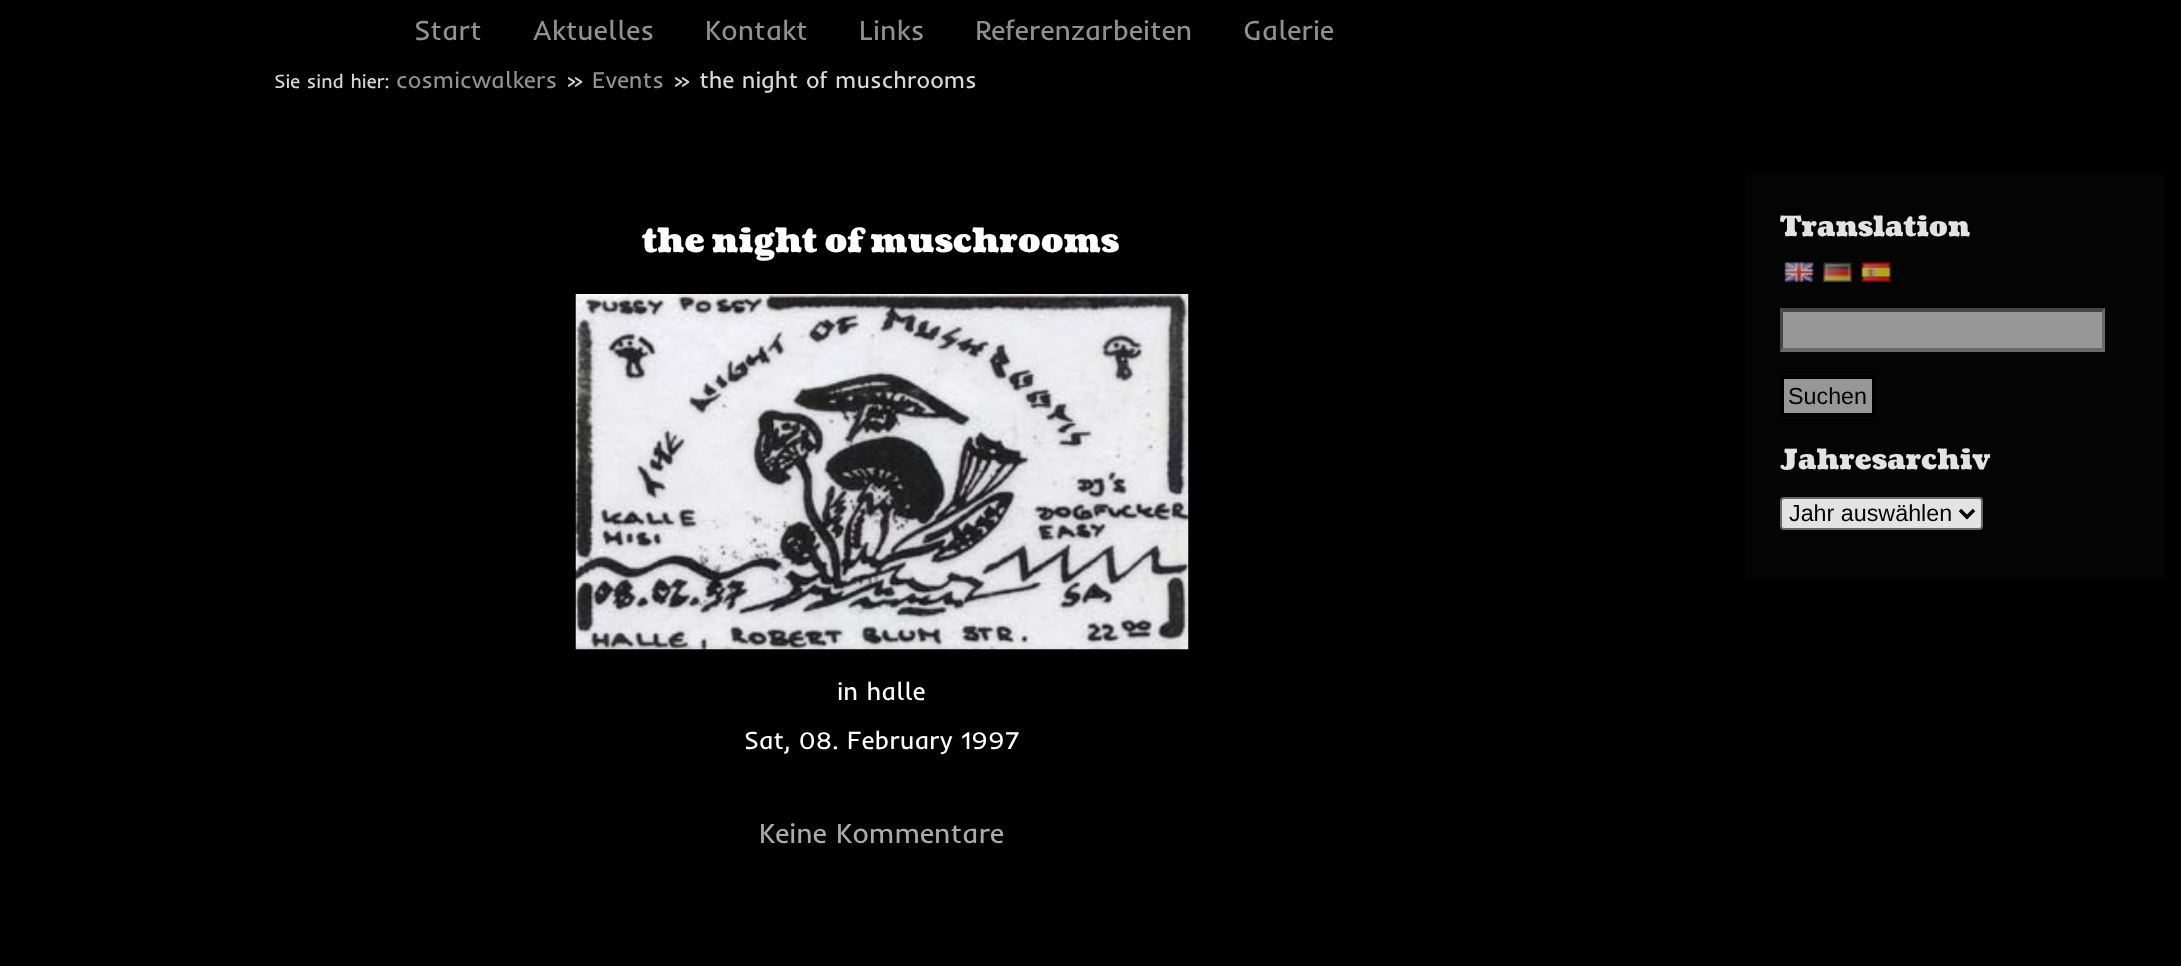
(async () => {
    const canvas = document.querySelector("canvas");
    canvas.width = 2181;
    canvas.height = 966;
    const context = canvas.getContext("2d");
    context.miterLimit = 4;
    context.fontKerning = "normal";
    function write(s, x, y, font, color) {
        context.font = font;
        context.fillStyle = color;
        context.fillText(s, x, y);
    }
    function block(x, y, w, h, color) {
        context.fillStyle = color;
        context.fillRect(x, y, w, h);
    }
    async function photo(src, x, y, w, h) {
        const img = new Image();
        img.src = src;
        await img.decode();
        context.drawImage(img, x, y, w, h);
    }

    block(0, 0, 2181, 966, "rgb(0, 0, 0)");
    write("Start", 414, 40, "28px Inder", "rgb(145, 145, 145)");
    write("Aktuelles", 533, 40, "28px Inder", "rgb(145, 145, 145)");
    write("Kontakt", 705, 40, "28px Inder", "rgb(145, 145, 145)");
    write("Links", 859, 40, "28px Inder", "rgb(145, 145, 145)");
    write("Referenzarbeiten", 975, 40, "28px Inder", "rgb(145, 145, 145)");
    write("Galerie", 1243, 40, "28px Inder", "rgb(145, 145, 145)");
    write("Sie sind hier:", 274, 88, "19.5px Inder", "rgb(217, 217, 217)");
    write("cosmicwalkers", 396, 88, "23.3px Inder", "rgb(145, 145, 145)");
    write("»", 565, 88, "23.3px Inder", "rgb(217, 217, 217)");
    write("Events", 592, 88, "23.3px Inder", "rgb(145, 145, 145)");
    write("» the night of muschrooms", 672, 88, "23.3px Inder", "rgb(217, 217, 217)");
    write("the night of muschrooms", 642, 252, "900 33.6px Coustard", "rgb(255, 255, 255)");
    await photo("media/1.png", 575, 294, 614, 356);
    write("in halle", 837, 700, "25.25px Inder", "rgb(255, 255, 255)");
    write("Sat, 08. February 1997", 744, 749, "25.25px Inder", "rgb(255, 255, 255)");
    write("Keine Kommentare", 759, 843, "28px Inder", "rgb(170, 170, 170)");
    block(1745, 175, 420, 404, "rgb(4, 4, 4)");
    write("Translation", 1780, 236, "900 28px Coustard", "rgb(227, 227, 227)");
    await photo("media/2.png", 1784, 262, 30, 20);
    await photo("media/3.png", 1823, 262, 30, 20);
    await photo("media/4.png", 1861, 262, 30, 20);
    block(1780, 308, 325, 44, "rgb(151, 151, 151)");
    context.fillStyle = "rgb(70, 70, 70)";
    context.beginPath();
    context.moveTo(1780, 308);
    context.lineTo(2105, 308);
    context.lineTo(2102, 312);
    context.lineTo(1783, 312);
    context.closePath();
    context.fill();
    context.fillStyle = "rgb(105, 105, 105)";
    context.beginPath();
    context.moveTo(2105, 308);
    context.lineTo(2105, 352);
    context.lineTo(2102, 348);
    context.lineTo(2102, 312);
    context.closePath();
    context.fill();
    context.beginPath();
    context.moveTo(2105, 352);
    context.lineTo(1780, 352);
    context.lineTo(1783, 348);
    context.lineTo(2102, 348);
    context.closePath();
    context.fill();
    context.fillStyle = "rgb(70, 70, 70)";
    context.beginPath();
    context.moveTo(1780, 352);
    context.lineTo(1780, 308);
    context.lineTo(1783, 312);
    context.lineTo(1783, 348);
    context.closePath();
    context.fill();
    context.fillStyle = "rgb(151, 151, 151)";
    context.beginPath();
    context.rect(1782, 377, 92, 38);
    context.fill();
    context.strokeStyle = "rgb(0, 0, 0)";
    context.lineWidth = 4;
    context.stroke();
    write("Suchen", 1788, 404, "23.3px Liberation Sans", "rgb(0, 0, 0)");
    write("Jahresarchiv", 1780, 469, "900 28px Coustard", "rgb(227, 227, 227)");
    context.beginPath();
    context.roundRect(1781, 498, 201, 31, 3);
    context.fill();
    context.strokeStyle = "rgb(105, 105, 105)";
    context.lineWidth = 2;
    context.stroke();
    context.beginPath();
    context.moveTo(1960, 510);
    context.lineTo(1967, 517);
    context.lineTo(1974, 510);
    context.strokeStyle = "rgb(0, 0, 0)";
    context.lineWidth = 3.5;
    context.stroke();
    write("Jahr auswählen", 1789, 521, "23.3px Liberation Sans", "rgb(0, 0, 0)");
})();
